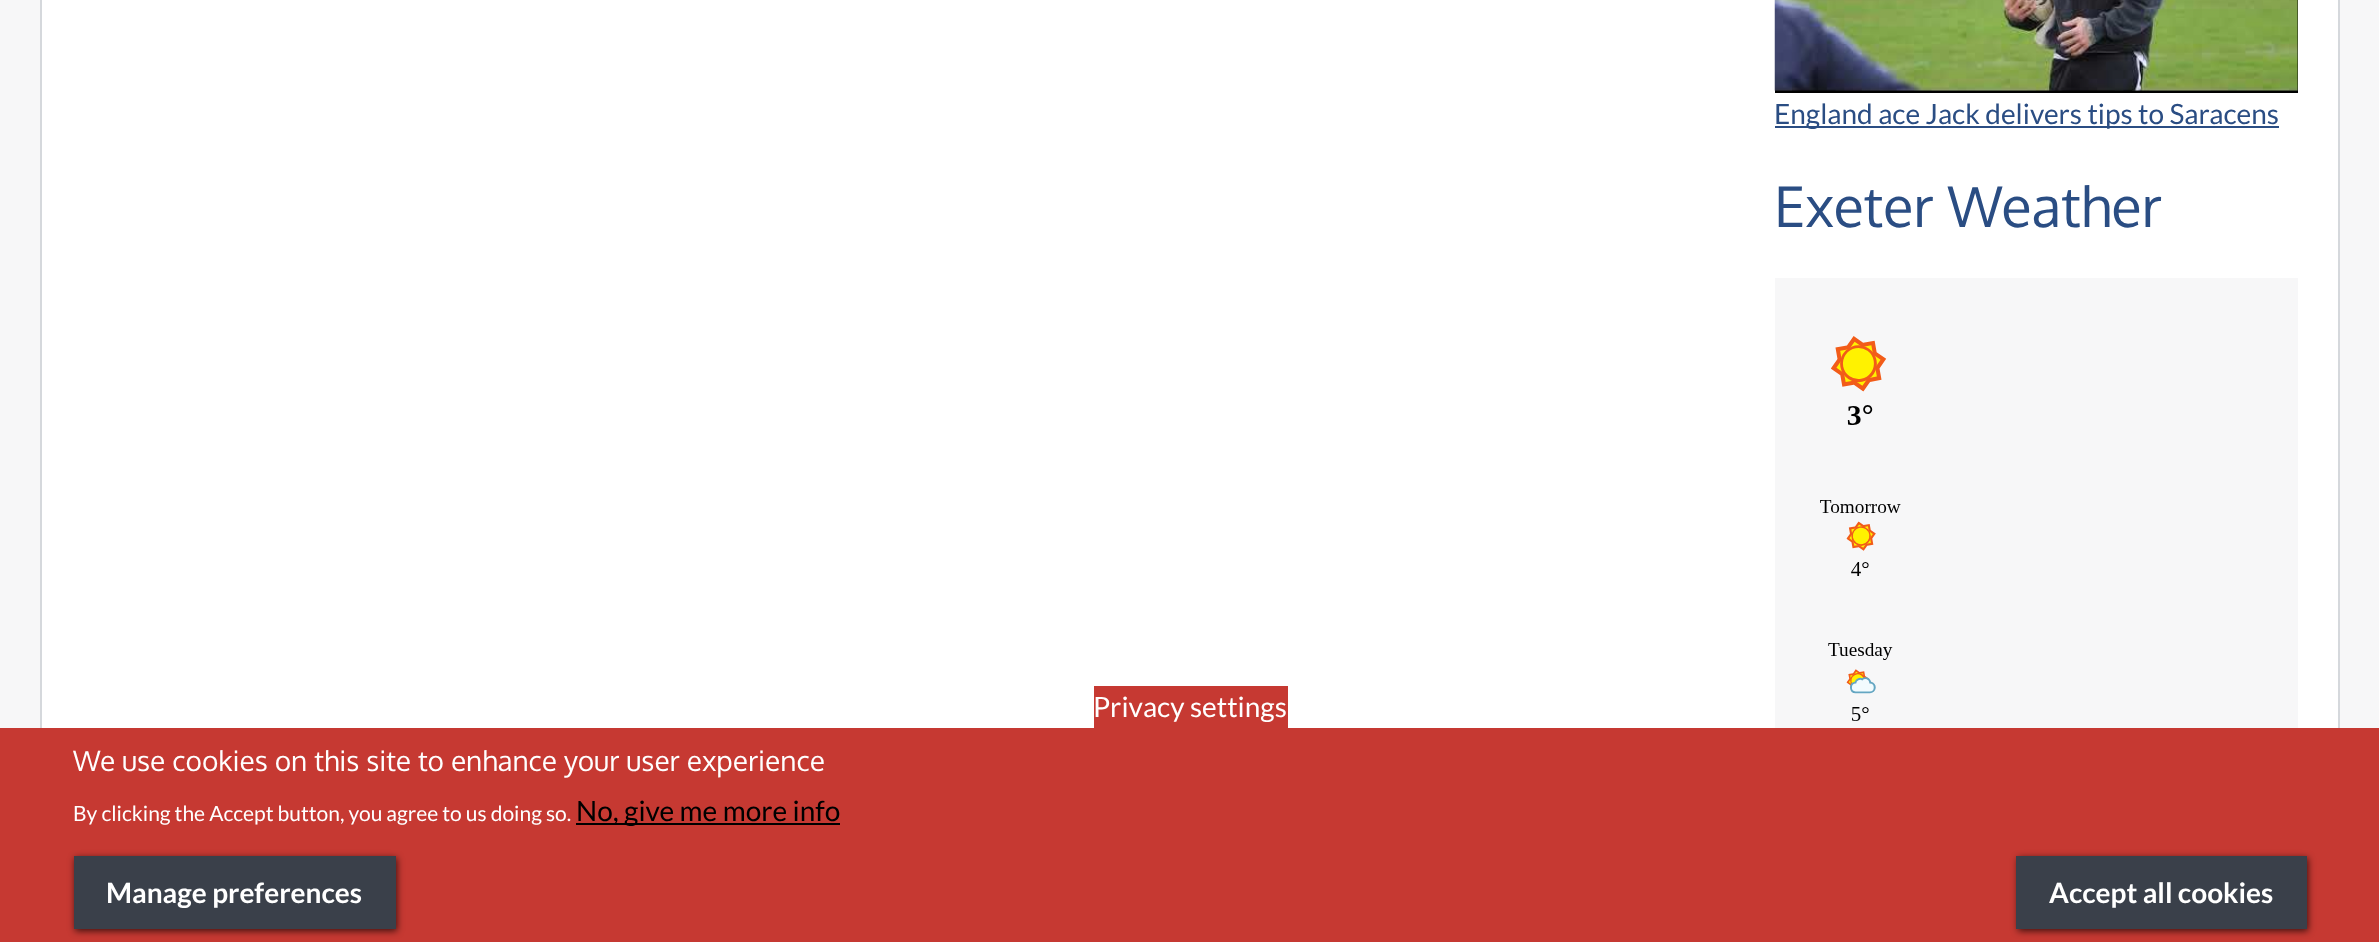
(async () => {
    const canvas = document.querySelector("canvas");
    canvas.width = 2379;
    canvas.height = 942;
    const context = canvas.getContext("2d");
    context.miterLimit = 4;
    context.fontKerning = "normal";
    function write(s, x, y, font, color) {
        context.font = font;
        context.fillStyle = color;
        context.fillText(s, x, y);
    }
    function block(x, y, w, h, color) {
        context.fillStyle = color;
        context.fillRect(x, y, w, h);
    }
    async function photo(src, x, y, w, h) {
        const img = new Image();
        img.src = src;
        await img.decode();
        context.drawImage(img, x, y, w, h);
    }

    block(0, 0, 2379, 942, "rgb(247, 247, 248)");
    block(42, 0, 2296, 728, "rgb(255, 255, 255)");
    block(2338, 0, 2, 728, "rgb(213, 216, 220)");
    block(40, 0, 2, 728, "rgb(213, 216, 220)");
    block(1775, 0, 523, 93, "rgb(0, 0, 0)");
    await photo("media/1.png", 1774, 0, 524, 91);
    block(1775, 126, 504, 2, "rgb(42, 77, 131)");
    write("England ace Jack delivers tips to Saracens", 1774, 124, "28px Lato", "rgb(42, 77, 131)");
    write("Exeter Weather", 1774, 227, "56px Oxygen", "rgb(42, 77, 131)");
    block(1775, 278, 523, 450, "rgb(247, 247, 248)");
    await photo("media/2.png", 1820, 336, 81, 385);
    block(1094, 686, 194, 42, "rgb(198, 57, 50)");
    write("Privacy settings", 1093, 717, "28px Lato", "rgb(255, 255, 255)");
    block(0, 728, 2379, 214, "rgb(198, 57, 50)");
    write("We use cookies on this site to enhance your user experience", 73, 771, "28px Oxygen", "rgb(255, 255, 255)");
    write("By clicking the Accept button, you agree to us doing so.", 73, 821, "21px Lato", "rgb(255, 255, 255)");
    block(576, 823, 264, 2, "rgb(0, 0, 0)");
    write("No, give me more info", 576, 821, "28px Lato", "rgb(0, 0, 0)");
    context.fillStyle = "rgba(0, 0, 0, 0.7)";
    context.filter = "blur(3.5px)";
    context.beginPath();
    context.rect(75, 858, 322, 73);
    context.fill();
    context.filter = "none";
    block(74, 856, 322, 73, "rgb(58, 64, 74)");
    write("Manage preferences", 106, 903, "bold 28px Lato", "rgb(255, 255, 255)");
    context.fillStyle = "rgba(0, 0, 0, 0.7)";
    context.filter = "blur(3.5px)";
    context.beginPath();
    context.rect(2018, 858, 290, 73);
    context.fill();
    context.filter = "none";
    block(2016, 856, 291, 73, "rgb(58, 64, 74)");
    write("Accept all cookies", 2049, 903, "bold 28px Lato", "rgb(255, 255, 255)");
})();
